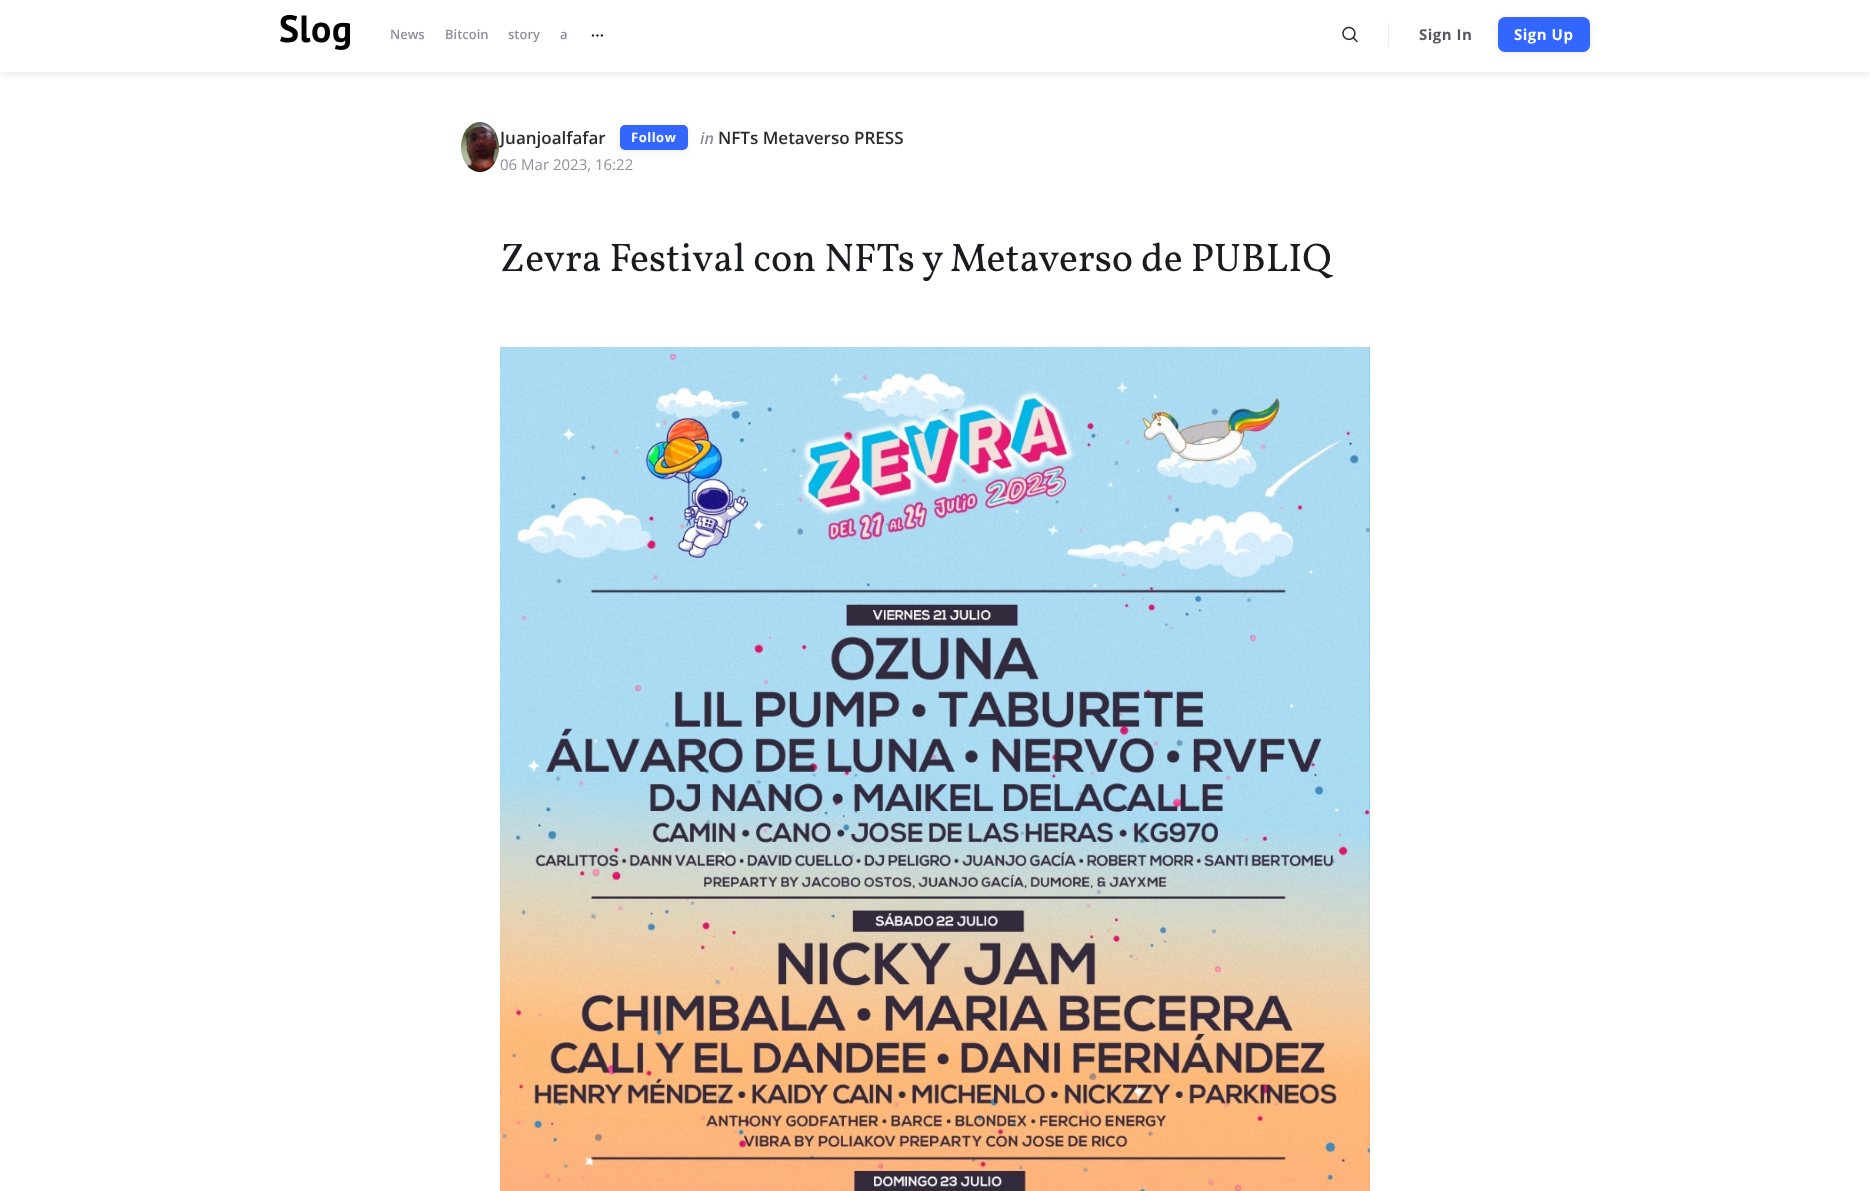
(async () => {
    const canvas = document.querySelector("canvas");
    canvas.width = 1870;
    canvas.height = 1191;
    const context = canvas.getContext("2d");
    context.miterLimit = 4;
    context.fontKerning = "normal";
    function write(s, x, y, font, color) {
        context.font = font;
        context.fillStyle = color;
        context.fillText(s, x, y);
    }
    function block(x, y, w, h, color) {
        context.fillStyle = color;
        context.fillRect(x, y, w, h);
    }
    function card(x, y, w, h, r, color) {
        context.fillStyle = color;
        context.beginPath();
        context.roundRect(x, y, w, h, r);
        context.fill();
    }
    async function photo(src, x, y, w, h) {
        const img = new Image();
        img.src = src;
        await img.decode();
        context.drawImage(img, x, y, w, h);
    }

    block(0, 0, 1870, 1191, "rgb(255, 255, 255)");
    context.save();
    context.beginPath();
    context.rect(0, 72, 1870, 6);
    context.clip();
    context.fillStyle = "rgba(43, 43, 43, 0.1)";
    context.filter = "blur(5px)";
    context.beginPath();
    context.rect(0, 2, 1870, 72);
    context.fill();
    context.filter = "none";
    context.restore();
    await photo("media/1.png", 280, 15, 70, 35);
    write("News", 390, 39, "600 13px Open Sans", "rgb(141, 146, 154)");
    write("Bitcoin", 445, 39, "600 13px Open Sans", "rgb(141, 146, 154)");
    write("story", 508, 39, "600 13px Open Sans", "rgb(141, 146, 154)");
    write("a", 560, 39, "600 13px Open Sans", "rgb(141, 146, 154)");
    await photo("media/2.png", 591, 34, 12, 3);
    await photo("media/3.png", 1342, 26, 16, 17);
    block(1388, 23, 1, 24, "rgb(237, 237, 237)");
    context.letterSpacing = "0.5px";
    write("Sign In", 1419, 40, "bold 15px Open Sans", "rgb(86, 90, 96)");
    context.fillStyle = "rgba(0, 0, 0, 0.07)";
    context.filter = "blur(3.5px)";
    context.beginPath();
    context.roundRect(1498, 19, 92, 35, 7);
    context.fill();
    context.filter = "none";
    card(1498, 17, 92, 35, 7, "rgb(51, 102, 255)");
    write("Sign Up", 1514, 40, "bold 15px Open Sans", "rgb(255, 255, 255)");
    context.letterSpacing = "0px";
    write("Juanjoalfafar", 500, 144, "600 17px Open Sans", "rgb(43, 43, 43)");
    await photo("media/4.png", 461, 122, 38, 50);
    context.fillStyle = "rgba(0, 0, 0, 0.07)";
    context.filter = "blur(3.5px)";
    context.beginPath();
    context.roundRect(620, 127, 68, 25, 5);
    context.fill();
    context.filter = "none";
    card(620, 125, 68, 25, 5, "rgb(51, 102, 255)");
    context.letterSpacing = "0.5px";
    write("Follow", 631, 142, "bold 13px Open Sans", "rgb(255, 255, 255)");
    context.letterSpacing = "0px";
    write("in", 700, 144, "italic 600 16px Open Sans", "rgb(141, 146, 154)");
    write("NFTs Metaverso PRESS", 718, 144, "600 17px Open Sans", "rgb(43, 43, 43)");
    write("06 Mar 2023, 16:22", 500, 170, "15px Open Sans", "rgb(141, 146, 154)");
    write("Zevra Festival con NFTs y Metaverso de PUBLIQ", 500, 271, "40px Vollkorn", "rgb(25, 27, 30)");
    await photo("media/5.png", 500, 347, 870, 844);
})();
